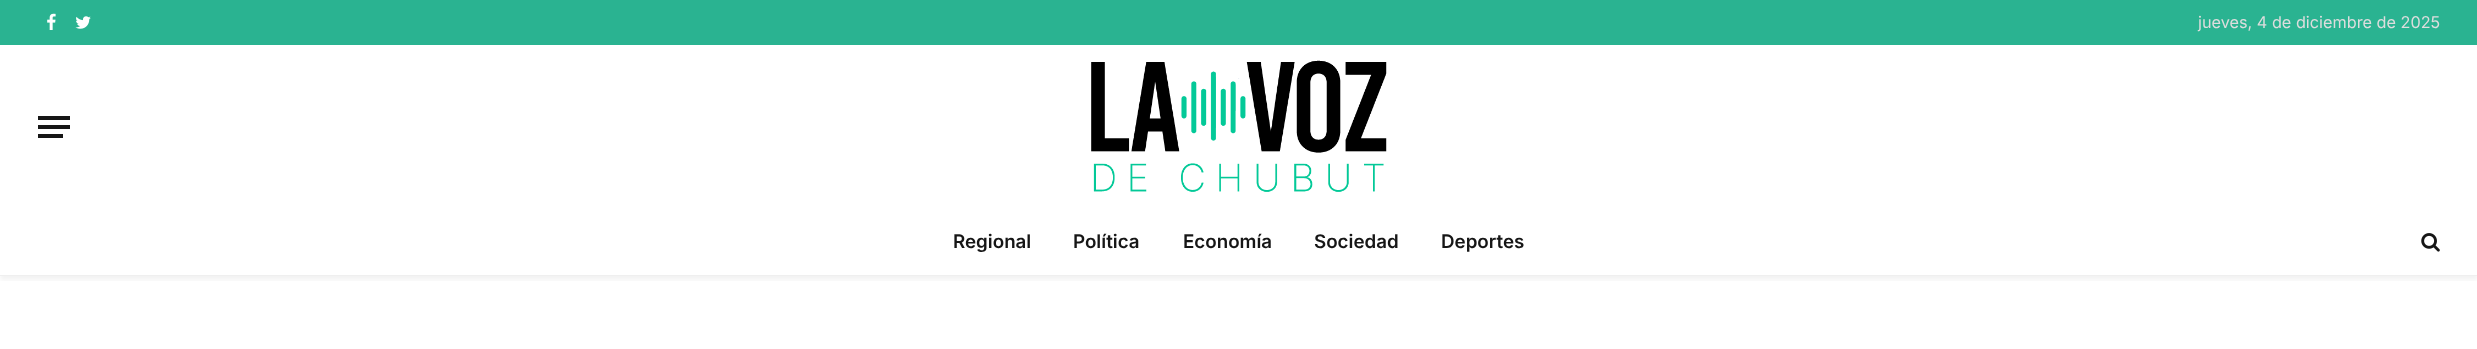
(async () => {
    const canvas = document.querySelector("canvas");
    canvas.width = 2477;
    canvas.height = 349;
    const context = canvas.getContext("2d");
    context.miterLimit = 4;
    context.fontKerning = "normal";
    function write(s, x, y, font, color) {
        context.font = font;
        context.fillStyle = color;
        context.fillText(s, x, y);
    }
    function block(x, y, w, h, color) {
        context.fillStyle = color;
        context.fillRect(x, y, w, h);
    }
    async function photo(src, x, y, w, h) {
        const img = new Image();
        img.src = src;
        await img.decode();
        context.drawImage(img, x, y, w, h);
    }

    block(0, 0, 2477, 349, "rgb(255, 255, 255)");
    context.save();
    context.beginPath();
    context.rect(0, 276, 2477, 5);
    context.clip();
    context.fillStyle = "rgba(0, 0, 0, 0.05)";
    context.filter = "blur(2.5px)";
    context.beginPath();
    context.rect(0, 4, 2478, 276);
    context.fill();
    context.filter = "none";
    context.restore();
    block(0, 0, 2477, 45, "rgb(42, 179, 145)");
    await photo("media/1.png", 47, 13, 9, 17);
    await photo("media/2.png", 75, 16, 16, 13);
    write("jueves, 4 de diciembre de 2025", 2198, 28, "16.25px Inter", "rgb(221, 221, 221)");
    block(38, 134, 25, 4, "rgb(22, 22, 22)");
    block(38, 116, 32, 4, "rgb(22, 22, 22)");
    block(38, 125, 32, 4, "rgb(22, 22, 22)");
    await photo("media/3.png", 1091, 60, 296, 132);
    block(0, 275, 2477, 1, "rgb(239, 239, 239)");
    write("Regional", 953, 248, "600 18.75px Inter", "rgb(22, 22, 22)");
    write("Política", 1073, 248, "600 18.75px Inter", "rgb(22, 22, 22)");
    write("Economía", 1183, 248, "600 18.75px Inter", "rgb(22, 22, 22)");
    write("Sociedad", 1314, 248, "600 18.75px Inter", "rgb(22, 22, 22)");
    write("Deportes", 1441, 248, "600 18.75px Inter", "rgb(22, 22, 22)");
    await photo("media/4.png", 2421, 233, 19, 19);
})();
